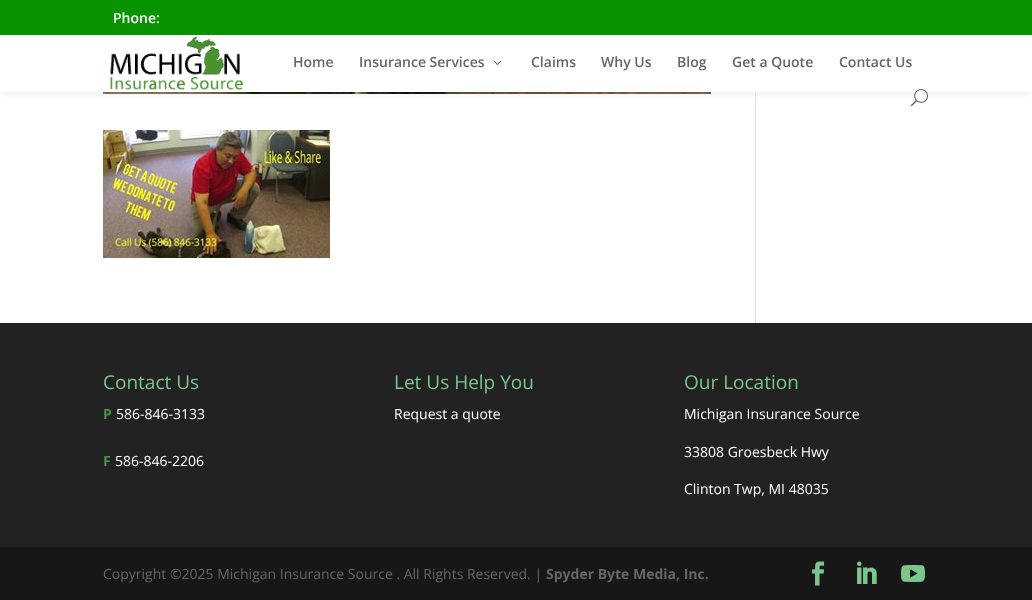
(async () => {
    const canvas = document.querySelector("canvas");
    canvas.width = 1032;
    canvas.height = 600;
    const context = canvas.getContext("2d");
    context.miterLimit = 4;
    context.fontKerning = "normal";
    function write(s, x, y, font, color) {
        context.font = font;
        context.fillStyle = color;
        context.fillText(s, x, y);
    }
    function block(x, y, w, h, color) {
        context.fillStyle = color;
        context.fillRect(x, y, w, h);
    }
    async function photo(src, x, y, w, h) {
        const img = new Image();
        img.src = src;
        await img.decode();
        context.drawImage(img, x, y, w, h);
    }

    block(0, 0, 1032, 600, "rgb(255, 255, 255)");
    await photo("media/4.png", 103, 92, 608, 2);
    block(755, 92, 1, 231, "rgb(226, 226, 226)");
    context.fillStyle = "rgba(0, 0, 0, 0.1)";
    context.filter = "blur(3.5px)";
    context.beginPath();
    context.rect(0, 35, 1032, 57);
    context.fill();
    context.filter = "none";
    block(0, 0, 1032, 35, "rgb(9, 147, 0)");
    write("Phone:", 113, 23, "600 14px Open Sans", "rgb(255, 255, 255)");
    block(0, 35, 1032, 57, "rgb(255, 255, 255)");
    await photo("media/1.png", 110, 36, 133, 54);
    write("Home", 293, 67, "600 14px Open Sans", "rgb(102, 102, 102)");
    write("Insurance Services", 359, 67, "600 14px Open Sans", "rgb(102, 102, 102)");
    await photo("media/2.png", 493, 60, 9, 5);
    write("Claims", 531, 67, "600 14px Open Sans", "rgb(102, 102, 102)");
    write("Why Us", 601, 67, "600 14px Open Sans", "rgb(102, 102, 102)");
    write("Blog", 677, 67, "600 14px Open Sans", "rgb(102, 102, 102)");
    write("Get a Quote", 732, 67, "600 14px Open Sans", "rgb(102, 102, 102)");
    write("Contact Us", 839, 67, "600 14px Open Sans", "rgb(102, 102, 102)");
    await photo("media/3.png", 911, 89, 17, 18);
    await photo("media/5.png", 103, 130, 227, 128);
    block(0, 323, 1032, 224, "rgb(34, 34, 34)");
    write("Contact Us", 103, 389, "19px Open Sans", "rgb(124, 198, 141)");
    write("P", 103, 419, "bold 14px Open Sans", "rgb(73, 145, 69)");
    write("586-846-3133", 116, 419, "14px Open Sans", "rgb(255, 255, 255)");
    write("F", 103, 466, "bold 14px Open Sans", "rgb(73, 145, 69)");
    write("586-846-2206", 115, 466, "14px Open Sans", "rgb(255, 255, 255)");
    write("Let Us Help You", 394, 389, "19px Open Sans", "rgb(124, 198, 141)");
    write("Request a quote", 394, 419, "14px Open Sans", "rgb(255, 255, 255)");
    write("Our Location", 684, 389, "19px Open Sans", "rgb(124, 198, 141)");
    write("Michigan Insurance Source", 684, 419, "14px Open Sans", "rgb(255, 255, 255)");
    write("33808 Groesbeck Hwy", 684, 457, "14px Open Sans", "rgb(255, 255, 255)");
    write("Clinton Twp, MI 48035", 684, 494, "14px Open Sans", "rgb(255, 255, 255)");
    block(0, 547, 1032, 53, "rgb(23, 23, 23)");
    write("Copyright ©2025 Michigan Insurance Source . All Rights Reserved. |", 103, 579, "14px Open Sans", "rgb(102, 102, 102)");
    write("Spyder Byte Media, Inc.", 546, 579, "bold 14px Open Sans", "rgb(102, 102, 102)");
    await photo("media/6.png", 812, 561, 13, 25);
    await photo("media/7.png", 857, 561, 20, 23);
    await photo("media/8.png", 901, 565, 24, 17);
})();
